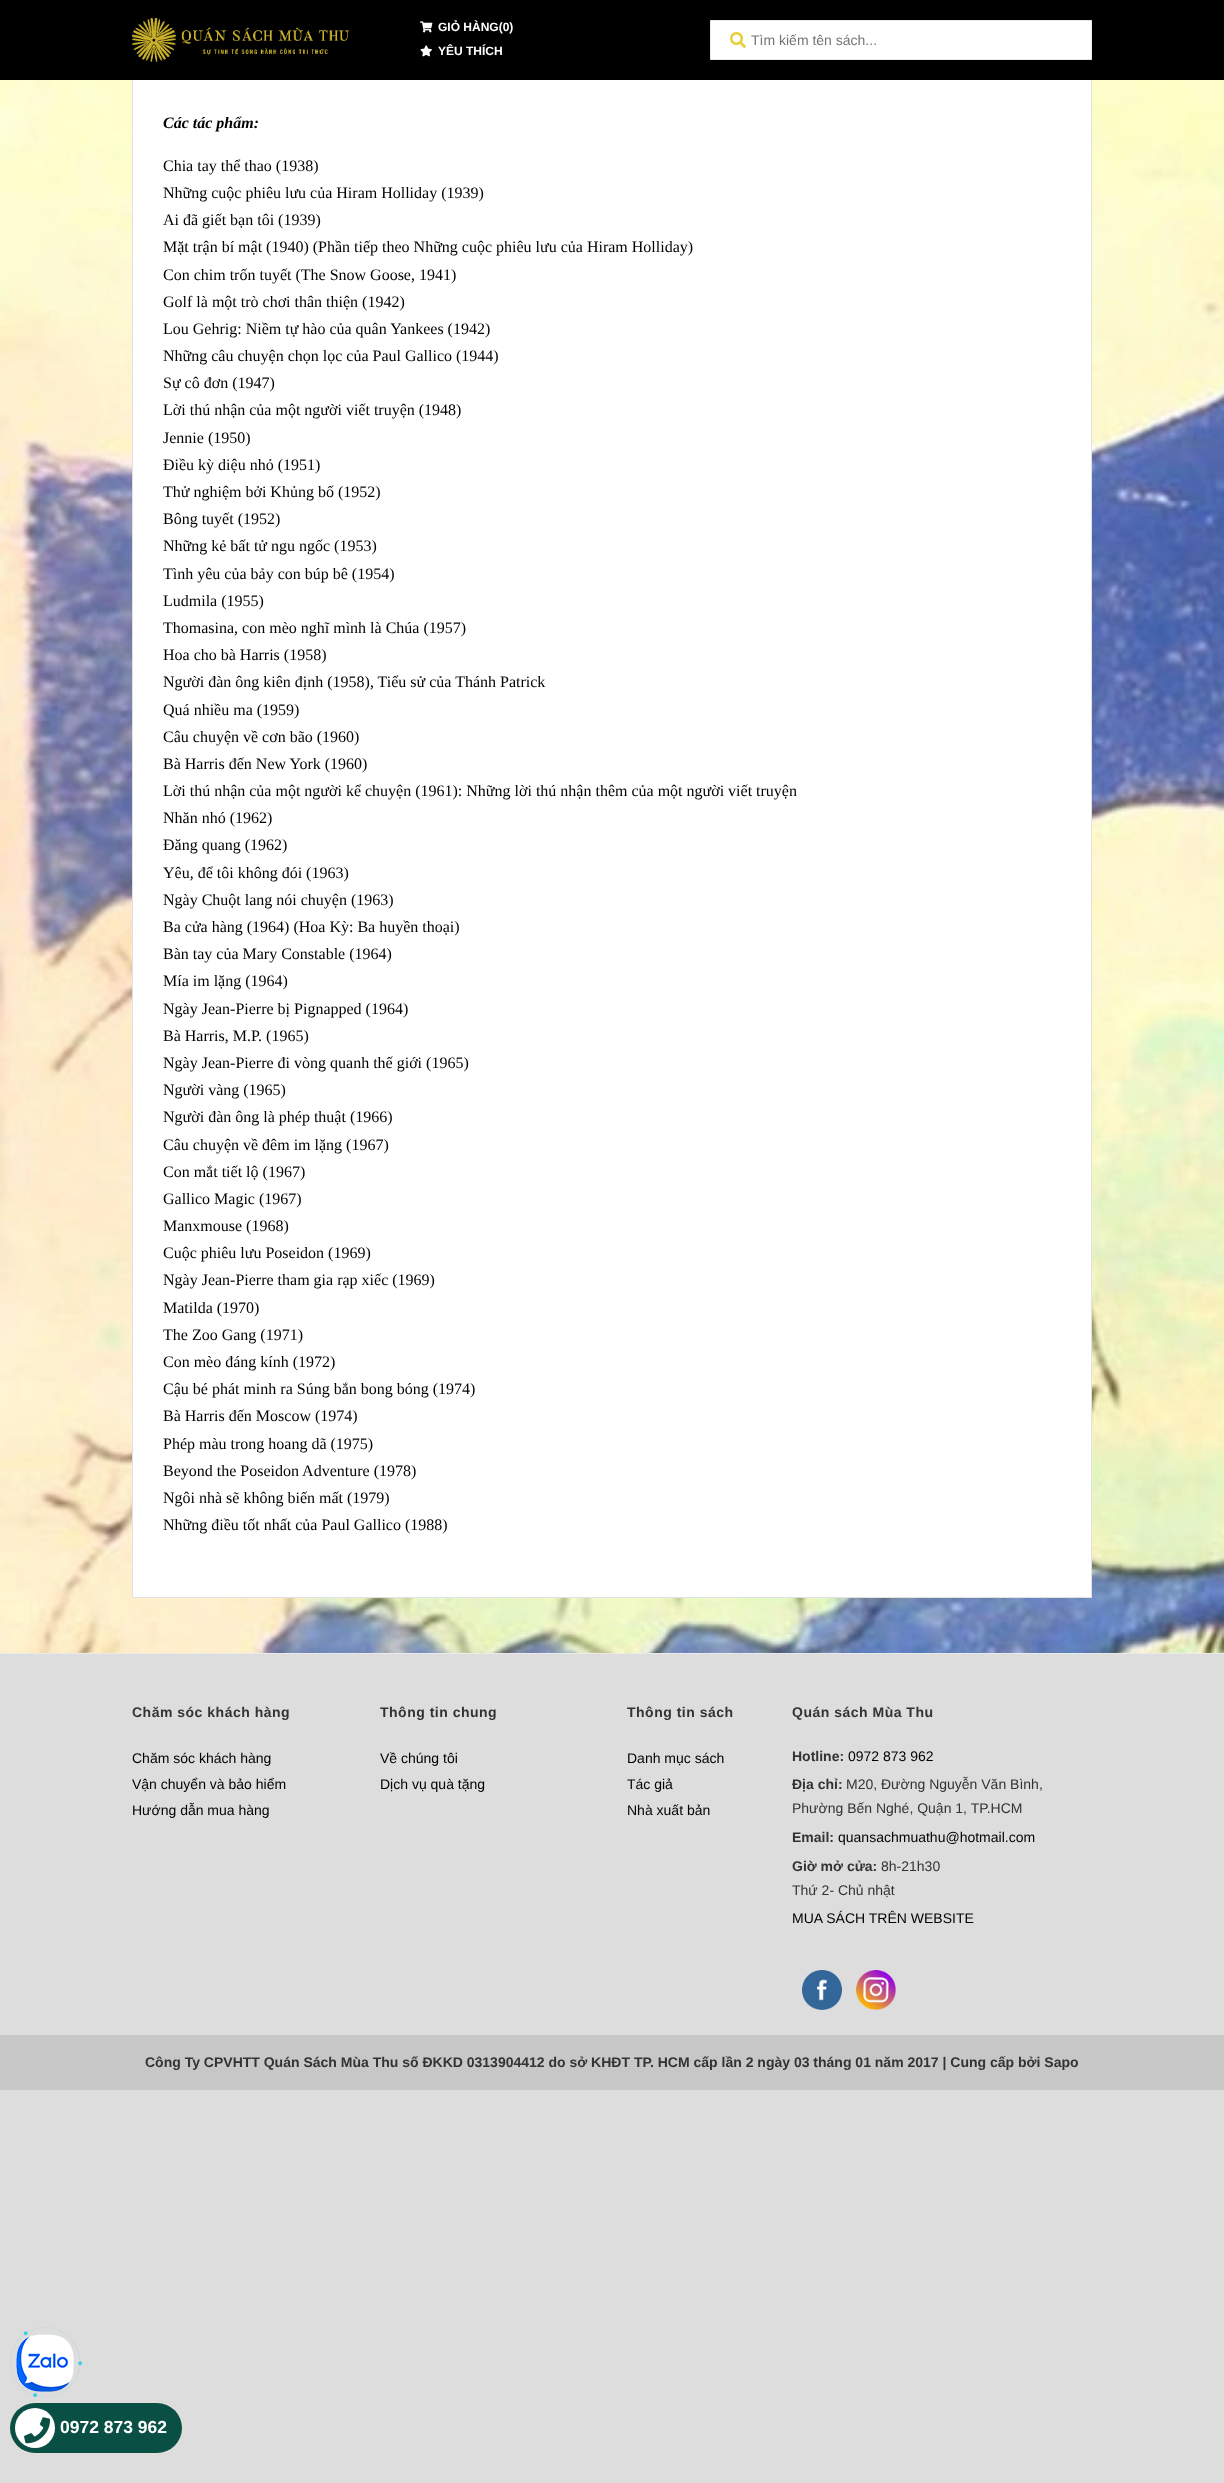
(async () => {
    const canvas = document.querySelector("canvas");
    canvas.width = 1224;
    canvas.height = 2483;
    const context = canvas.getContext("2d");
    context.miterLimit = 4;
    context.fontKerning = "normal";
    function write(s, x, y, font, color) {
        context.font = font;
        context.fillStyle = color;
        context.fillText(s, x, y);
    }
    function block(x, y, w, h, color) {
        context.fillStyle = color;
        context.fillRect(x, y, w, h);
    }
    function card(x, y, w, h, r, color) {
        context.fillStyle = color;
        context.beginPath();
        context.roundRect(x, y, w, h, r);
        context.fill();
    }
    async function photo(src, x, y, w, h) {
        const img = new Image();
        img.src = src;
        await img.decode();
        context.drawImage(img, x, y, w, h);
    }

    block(0, 0, 1224, 2483, "rgb(221, 221, 221)");
    await photo("media/5.png", 0, 80, 1224, 1573);
    block(133, 80, 958, 1517, "rgb(255, 255, 255)");
    context.strokeStyle = "rgb(225, 225, 225)";
    context.strokeRect(132.5, -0.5, 959, 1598);
    block(0, 0, 1224, 80, "rgb(0, 0, 0)");
    await photo("media/1.png", 132, 18, 217, 44);
    await photo("media/2.png", 420, 21, 13, 12);
    write("GIỎ HÀNG(0)", 438, 31, "bold 12px Liberation Sans", "rgb(255, 255, 255)");
    await photo("media/3.png", 420, 45, 12, 12);
    write("YÊU THÍCH", 438, 55, "bold 12px Liberation Sans", "rgb(255, 255, 255)");
    context.beginPath();
    context.rect(710.5, 20.5, 381, 39);
    context.fill();
    context.strokeStyle = "rgb(235, 235, 235)";
    context.stroke();
    await photo("media/4.png", 730, 32, 16, 16);
    write("Tìm kiếm tên sách...", 751, 45, "14px Liberation Sans", "rgb(117, 117, 117)");
    write("Các tác phẩm:", 163, 128, "italic bold 16px Liberation Serif", "rgb(0, 0, 0)");
    write("Chia tay thể thao (1938)", 163, 171, "16px Liberation Serif", "rgb(0, 0, 0)");
    write("Những cuộc phiêu lưu của Hiram Holliday (1939)", 163, 198, "16px Liberation Serif", "rgb(0, 0, 0)");
    write("Ai đã giết bạn tôi (1939)", 163, 225, "16px Liberation Serif", "rgb(0, 0, 0)");
    write("Mặt trận bí mật (1940) (Phần tiếp theo Những cuộc phiêu lưu của Hiram Holliday)", 163, 252, "16px Liberation Serif", "rgb(0, 0, 0)");
    write("Con chim trốn tuyết (The Snow Goose, 1941)", 163, 280, "16px Liberation Serif", "rgb(0, 0, 0)");
    write("Golf là một trò chơi thân thiện (1942)", 163, 307, "16px Liberation Serif", "rgb(0, 0, 0)");
    write("Lou Gehrig: Niềm tự hào của quân Yankees (1942)", 163, 334, "16px Liberation Serif", "rgb(0, 0, 0)");
    write("Những câu chuyện chọn lọc của Paul Gallico (1944)", 163, 361, "16px Liberation Serif", "rgb(0, 0, 0)");
    write("Sự cô đơn (1947)", 163, 388, "16px Liberation Serif", "rgb(0, 0, 0)");
    write("Lời thú nhận của một người viết truyện (1948)", 163, 415, "16px Liberation Serif", "rgb(0, 0, 0)");
    write("Jennie (1950)", 163, 443, "16px Liberation Serif", "rgb(0, 0, 0)");
    write("Điều kỳ diệu nhỏ (1951)", 163, 470, "16px Liberation Serif", "rgb(0, 0, 0)");
    write("Thử nghiệm bởi Khủng bố (1952)", 163, 497, "16px Liberation Serif", "rgb(0, 0, 0)");
    write("Bông tuyết (1952)", 163, 524, "16px Liberation Serif", "rgb(0, 0, 0)");
    write("Những kẻ bất tử ngu ngốc (1953)", 163, 551, "16px Liberation Serif", "rgb(0, 0, 0)");
    write("Tình yêu của bảy con búp bê (1954)", 163, 579, "16px Liberation Serif", "rgb(0, 0, 0)");
    write("Ludmila (1955)", 163, 606, "16px Liberation Serif", "rgb(0, 0, 0)");
    write("Thomasina, con mèo nghĩ mình là Chúa (1957)", 163, 633, "16px Liberation Serif", "rgb(0, 0, 0)");
    write("Hoa cho bà Harris (1958)", 163, 660, "16px Liberation Serif", "rgb(0, 0, 0)");
    write("Người đàn ông kiên định (1958), Tiểu sử của Thánh Patrick", 163, 687, "16px Liberation Serif", "rgb(0, 0, 0)");
    write("Quá nhiều ma (1959)", 163, 715, "16px Liberation Serif", "rgb(0, 0, 0)");
    write("Câu chuyện về cơn bão (1960)", 163, 742, "16px Liberation Serif", "rgb(0, 0, 0)");
    write("Bà Harris đến New York (1960)", 163, 769, "16px Liberation Serif", "rgb(0, 0, 0)");
    write("Lời thú nhận của một người kể chuyện (1961): Những lời thú nhận thêm của một người viết truyện", 163, 796, "16px Liberation Serif", "rgb(0, 0, 0)");
    write("Nhăn nhó (1962)", 163, 823, "16px Liberation Serif", "rgb(0, 0, 0)");
    write("Đăng quang (1962)", 163, 850, "16px Liberation Serif", "rgb(0, 0, 0)");
    write("Yêu, để tôi không đói (1963)", 163, 878, "16px Liberation Serif", "rgb(0, 0, 0)");
    write("Ngày Chuột lang nói chuyện (1963)", 163, 905, "16px Liberation Serif", "rgb(0, 0, 0)");
    write("Ba cửa hàng (1964) (Hoa Kỳ: Ba huyền thoại)", 163, 932, "16px Liberation Serif", "rgb(0, 0, 0)");
    write("Bàn tay của Mary Constable (1964)", 163, 959, "16px Liberation Serif", "rgb(0, 0, 0)");
    write("Mía im lặng (1964)", 163, 986, "16px Liberation Serif", "rgb(0, 0, 0)");
    write("Ngày Jean-Pierre bị Pignapped (1964)", 163, 1014, "16px Liberation Serif", "rgb(0, 0, 0)");
    write("Bà Harris, M.P. (1965)", 163, 1041, "16px Liberation Serif", "rgb(0, 0, 0)");
    write("Ngày Jean-Pierre đi vòng quanh thế giới (1965)", 163, 1068, "16px Liberation Serif", "rgb(0, 0, 0)");
    write("Người vàng (1965)", 163, 1095, "16px Liberation Serif", "rgb(0, 0, 0)");
    write("Người đàn ông là phép thuật (1966)", 163, 1122, "16px Liberation Serif", "rgb(0, 0, 0)");
    write("Câu chuyện về đêm im lặng (1967)", 163, 1150, "16px Liberation Serif", "rgb(0, 0, 0)");
    write("Con mắt tiết lộ (1967)", 163, 1177, "16px Liberation Serif", "rgb(0, 0, 0)");
    write("Gallico Magic (1967)", 163, 1204, "16px Liberation Serif", "rgb(0, 0, 0)");
    write("Manxmouse (1968)", 163, 1231, "16px Liberation Serif", "rgb(0, 0, 0)");
    write("Cuộc phiêu lưu Poseidon (1969)", 163, 1258, "16px Liberation Serif", "rgb(0, 0, 0)");
    write("Ngày Jean-Pierre tham gia rạp xiếc (1969)", 163, 1285, "16px Liberation Serif", "rgb(0, 0, 0)");
    write("Matilda (1970)", 163, 1313, "16px Liberation Serif", "rgb(0, 0, 0)");
    write("The Zoo Gang (1971)", 163, 1340, "16px Liberation Serif", "rgb(0, 0, 0)");
    write("Con mèo đáng kính (1972)", 163, 1367, "16px Liberation Serif", "rgb(0, 0, 0)");
    write("Cậu bé phát minh ra Súng bắn bong bóng (1974)", 163, 1394, "16px Liberation Serif", "rgb(0, 0, 0)");
    write("Bà Harris đến Moscow (1974)", 163, 1421, "16px Liberation Serif", "rgb(0, 0, 0)");
    write("Phép màu trong hoang dã (1975)", 163, 1449, "16px Liberation Serif", "rgb(0, 0, 0)");
    write("Beyond the Poseidon Adventure (1978)", 163, 1476, "16px Liberation Serif", "rgb(0, 0, 0)");
    write("Ngôi nhà sẽ không biến mất (1979)", 163, 1503, "16px Liberation Serif", "rgb(0, 0, 0)");
    write("Những điều tốt nhất của Paul Gallico (1988)", 163, 1530, "16px Liberation Serif", "rgb(0, 0, 0)");
    block(0, 1653, 1224, 1, "rgb(235, 235, 235)");
    context.letterSpacing = "0.5px";
    write("Chăm sóc khách hàng", 132, 1717, "bold 14px Liberation Sans", "rgb(51, 51, 51)");
    context.letterSpacing = "0px";
    write("Chăm sóc khách hàng", 132, 1763, "14px Liberation Sans", "rgb(0, 0, 0)");
    write("Vận chuyển và bảo hiểm", 132, 1789, "14px Liberation Sans", "rgb(0, 0, 0)");
    write("Hướng dẫn mua hàng", 132, 1815, "14px Liberation Sans", "rgb(0, 0, 0)");
    context.letterSpacing = "0.5px";
    write("Thông tin chung", 380, 1717, "bold 14px Liberation Sans", "rgb(51, 51, 51)");
    context.letterSpacing = "0px";
    write("Về chúng tôi", 380, 1763, "14px Liberation Sans", "rgb(0, 0, 0)");
    write("Dịch vụ quà tặng", 380, 1789, "14px Liberation Sans", "rgb(0, 0, 0)");
    context.letterSpacing = "0.5px";
    write("Thông tin sách", 627, 1717, "bold 14px Liberation Sans", "rgb(51, 51, 51)");
    context.letterSpacing = "0px";
    write("Danh mục sách", 627, 1763, "14px Liberation Sans", "rgb(0, 0, 0)");
    write("Tác giả", 627, 1789, "14px Liberation Sans", "rgb(0, 0, 0)");
    write("Nhà xuất bản", 627, 1815, "14px Liberation Sans", "rgb(0, 0, 0)");
    context.letterSpacing = "0.5px";
    write("Quán sách Mùa Thu", 792, 1717, "bold 14px Liberation Sans", "rgb(51, 51, 51)");
    context.letterSpacing = "0px";
    write("Hotline:", 792, 1761, "bold 14px Liberation Sans", "rgb(51, 51, 51)");
    write("0972 873 962", 848, 1761, "14px Liberation Sans", "rgb(0, 0, 0)");
    write("Địa chỉ:", 792, 1789, "bold 14px Liberation Sans", "rgb(51, 51, 51)");
    write("M20, Đường Nguyễn Văn Bình,", 846, 1789, "14px Liberation Sans", "rgb(51, 51, 51)");
    write("Phường Bến Nghé, Quận 1, TP.HCM", 792, 1813, "14px Liberation Sans", "rgb(51, 51, 51)");
    write("Email:", 792, 1842, "bold 14px Liberation Sans", "rgb(51, 51, 51)");
    write("quansachmuathu@hotmail.com", 838, 1842, "14px Liberation Sans", "rgb(0, 0, 0)");
    write("Giờ mở cửa:", 792, 1871, "bold 14px Liberation Sans", "rgb(51, 51, 51)");
    write("8h-21h30", 881, 1871, "14px Liberation Sans", "rgb(51, 51, 51)");
    write("Thứ 2- Chủ nhật", 792, 1895, "14px Liberation Sans", "rgb(51, 51, 51)");
    write("MUA SÁCH TRÊN WEBSITE", 792, 1923, "14px Liberation Sans", "rgb(0, 0, 0)");
    await photo("media/6.png", 802, 1970, 40, 40);
    await photo("media/7.png", 856, 1970, 40, 40);
    block(0, 2035, 1224, 55, "rgb(199, 199, 199)");
    write("Công Ty CPVHTT Quán Sách Mùa Thu số ĐKKD 0313904412 do sở KHĐT TP. HCM cấp lần 2 ngày 03 tháng 01 năm 2017 | Cung cấp bởi Sapo", 145, 2067, "bold 14px Liberation Sans", "rgb(51, 51, 51)");
    await photo("media/8.png", 10, 2327, 72, 71);
    await photo("media/9.png", 16, 2334, 58, 58);
    card(10, 2403, 172, 50, 25, "rgb(10, 79, 67)");
    context.fillStyle = "rgb(255, 255, 255)";
    context.beginPath();
    context.arc(35, 2428, 20, 0, Math.PI * 2);
    context.fill();
    await photo("media/10.png", 24, 2417, 26, 27);
    write("0972 873 962", 60, 2433, "bold 17.5px Liberation Sans", "rgb(255, 255, 255)");
})();
